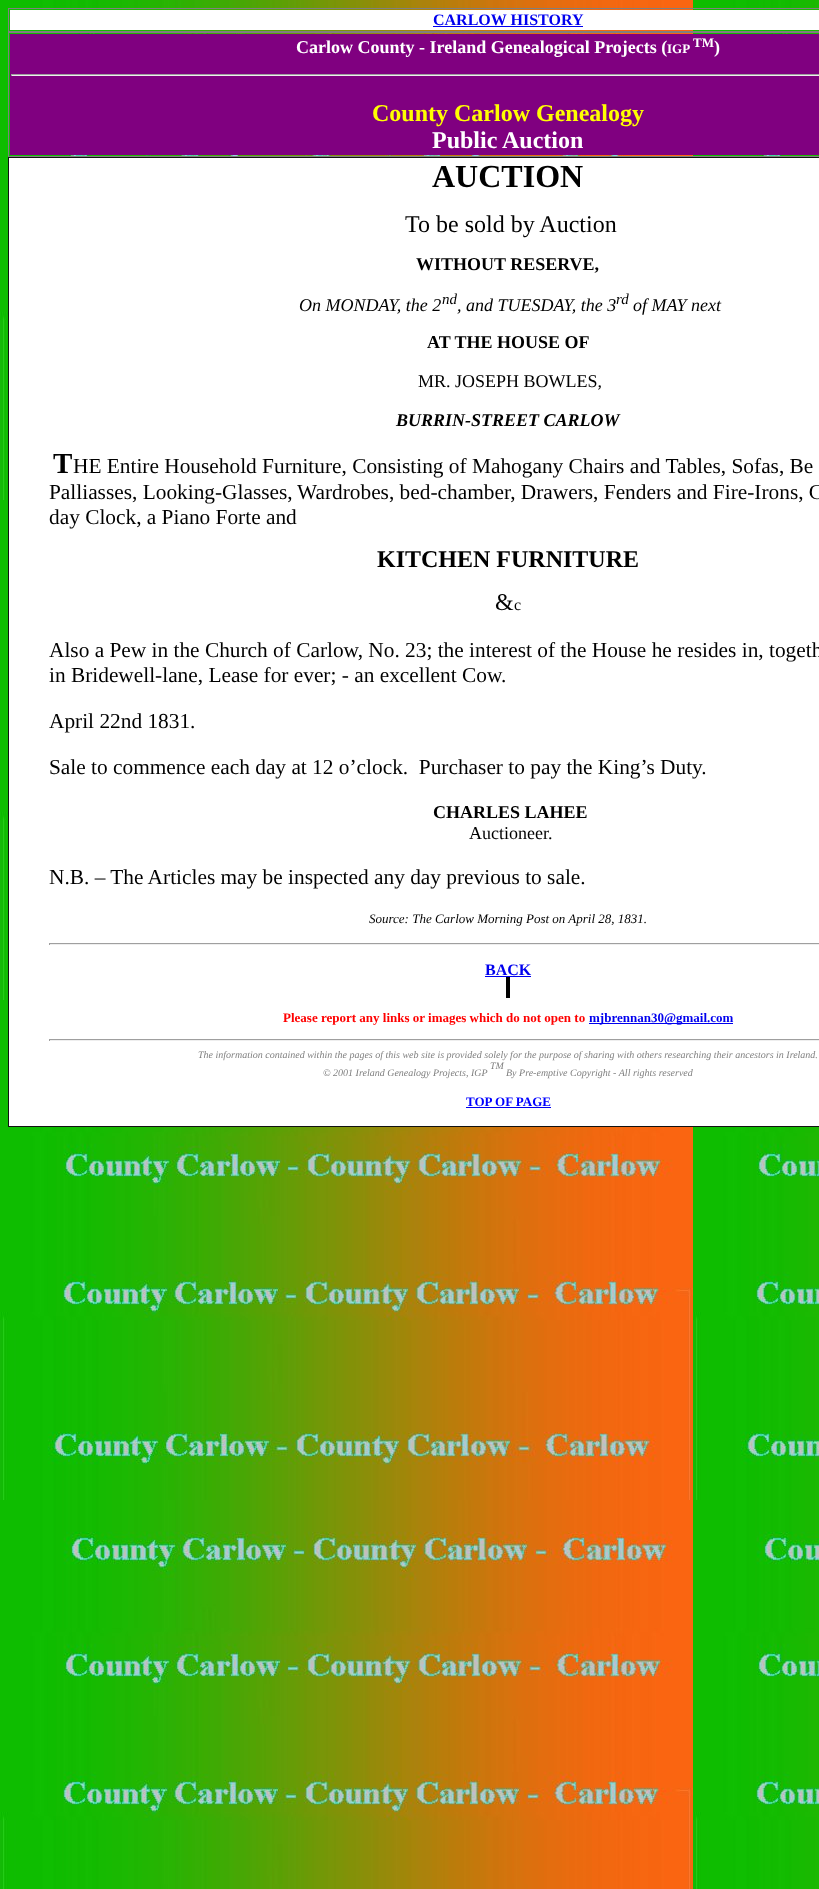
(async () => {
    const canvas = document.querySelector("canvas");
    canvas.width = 819;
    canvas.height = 1889;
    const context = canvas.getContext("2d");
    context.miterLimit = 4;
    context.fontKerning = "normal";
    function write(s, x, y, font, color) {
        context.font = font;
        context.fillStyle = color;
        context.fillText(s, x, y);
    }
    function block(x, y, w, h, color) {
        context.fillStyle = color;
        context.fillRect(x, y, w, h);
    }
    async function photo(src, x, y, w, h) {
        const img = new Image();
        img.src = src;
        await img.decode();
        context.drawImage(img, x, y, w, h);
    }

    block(0, 0, 819, 1889, "rgb(255, 255, 255)");
    await photo("media/1.png", 0, 0, 819, 1889);
    context.strokeStyle = "rgb(128, 128, 128)";
    context.strokeRect(8.5, 8.5, 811, 23);
    block(10, 10, 809, 20, "rgb(255, 255, 255)");
    write("CARLOW HISTORY", 433, 25, "bold 16px Liberation Serif", "rgb(0, 0, 238)");
    block(433, 26, 150, 1, "rgb(0, 0, 238)");
    context.strokeRect(8.5, 32.5, 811, 124);
    block(10, 34, 809, 121, "rgb(128, 0, 128)");
    write("Carlow County - Ireland Genealogical Projects (", 296, 53, "bold 18px Liberation Serif", "rgb(255, 255, 255)");
    write("IGP", 667, 53, "bold 13px Liberation Serif", "rgb(255, 255, 255)");
    write("TM", 693, 47, "bold 13px Liberation Serif", "rgb(255, 255, 255)");
    write(")", 714, 53, "bold 18px Liberation Serif", "rgb(255, 255, 255)");
    block(11, 74, 808, 1, "rgb(159, 159, 159)");
    block(11, 75, 808, 1, "rgb(238, 238, 238)");
    block(11, 74, 1, 2, "rgb(159, 159, 159)");
    write("County Carlow Genealogy", 372, 121, "bold 24px Liberation Serif", "rgb(255, 255, 0)");
    write("Public Auction", 432, 148, "bold 24px Liberation Serif", "rgb(255, 255, 255)");
    block(8, 157, 811, 1, "rgb(17, 17, 17)");
    block(8, 1126, 811, 1, "rgb(17, 17, 17)");
    block(8, 157, 1, 970, "rgb(17, 17, 17)");
    block(9, 158, 810, 968, "rgb(255, 255, 255)");
    write("AUCTION", 432, 187, "bold 32px Liberation Serif", "rgb(0, 0, 0)");
    write("To be sold by Auction", 405, 232, "24px Liberation Serif", "rgb(0, 0, 0)");
    write("WITHOUT RESERVE,", 416, 270, "bold 18px Liberation Serif", "rgb(0, 0, 0)");
    write("On MONDAY, the 2", 299, 311, "italic 18px Liberation Serif", "rgb(0, 0, 0)");
    write("nd", 442, 304, "italic 15px Liberation Serif", "rgb(0, 0, 0)");
    write(", and TUESDAY, the 3", 457, 311, "italic 18px Liberation Serif", "rgb(0, 0, 0)");
    write("rd", 616, 304, "italic 15px Liberation Serif", "rgb(0, 0, 0)");
    write("of MAY next", 633, 311, "italic 18px Liberation Serif", "rgb(0, 0, 0)");
    write("AT THE HOUSE OF", 427, 348, "bold 18px Liberation Serif", "rgb(0, 0, 0)");
    write("MR. JOSEPH BOWLES,", 418, 387, "18px Liberation Serif", "rgb(0, 0, 0)");
    write("BURRIN-STREET CARLOW", 396, 426, "italic bold 18px Liberation Serif", "rgb(0, 0, 0)");
    write("T", 53, 473, "bold 29px Liberation Serif", "rgb(0, 0, 0)");
    write("HE Entire Household Furniture, Consisting of Mahogany Chairs and Tables, Sofas, Be", 73, 473, "21.35px Liberation Serif", "rgb(0, 0, 0)");
    write("Palliasses, Looking-Glasses,", 49, 499, "21.35px Liberation Serif", "rgb(0, 0, 0)");
    write("Wardrobes, bed-chamber, Drawers, Fenders and Fire-Irons, C", 297, 499, "21.35px Liberation Serif", "rgb(0, 0, 0)");
    write("day Clock, a Piano Forte and", 49, 524, "21.35px Liberation Serif", "rgb(0, 0, 0)");
    write("KITCHEN FURNITURE", 377, 567, "bold 24px Liberation Serif", "rgb(0, 0, 0)");
    write("&", 495, 610, "24px Liberation Serif", "rgb(0, 0, 0)");
    write("c", 514, 610, "16px Liberation Serif", "rgb(0, 0, 0)");
    write("Also a Pew in the Church of Carlow, No. 23; the interest of the House he resides in, togeth", 49, 657, "21.35px Liberation Serif", "rgb(0, 0, 0)");
    write("in Bridewell-lane, Lease for ever; - an excellent Cow.", 49, 682, "21.35px Liberation Serif", "rgb(0, 0, 0)");
    write("April 22nd 1831.", 49, 728, "21.35px Liberation Serif", "rgb(0, 0, 0)");
    write("Sale to commence each day at 12 o’clock.  Purchaser to pay the King’s Duty.", 49, 774, "21.35px Liberation Serif", "rgb(0, 0, 0)");
    write("CHARLES LAHEE", 433, 818, "bold 18px Liberation Serif", "rgb(0, 0, 0)");
    write("Auctioneer.", 469, 839, "18px Liberation Serif", "rgb(0, 0, 0)");
    write("N.B. – The Articles may be inspected any day previous to sale.", 49, 884, "21.35px Liberation Serif", "rgb(0, 0, 0)");
    write("Source: The Carlow Morning Post on April 28, 1831.", 369, 923, "italic 13px Liberation Serif", "rgb(0, 0, 0)");
    block(49, 943, 770, 1, "rgb(159, 159, 159)");
    block(49, 944, 770, 1, "rgb(238, 238, 238)");
    block(49, 943, 1, 2, "rgb(159, 159, 159)");
    write("BACK", 485, 975, "bold 16px Liberation Serif", "rgb(0, 0, 238)");
    block(485, 976, 46, 1, "rgb(0, 0, 238)");
    block(506, 977, 4, 21, "rgb(0, 0, 0)");
    write("Please report any links or images which do not open to", 283, 1022, "bold 13px Liberation Serif", "rgb(255, 0, 0)");
    block(589, 1023, 144, 1, "rgb(0, 0, 238)");
    write("mjbrennan30@gmail.com", 589, 1022, "bold 13px Liberation Serif", "rgb(0, 0, 238)");
    block(49, 1039, 770, 1, "rgb(159, 159, 159)");
    block(49, 1040, 770, 1, "rgb(238, 238, 238)");
    block(49, 1039, 1, 2, "rgb(159, 159, 159)");
    write("The information contained within the pages of this web site is provided solely for the purpose of sharing with others researching their ancestors in Ireland.", 198, 1058, "italic 10px Liberation Serif", "rgb(128, 128, 128)");
    write("TM", 490, 1069, "italic 10px Liberation Serif", "rgb(128, 128, 128)");
    write("© 2001 Ireland Genealogy Projects, IGP", 323, 1076, "italic 10px Liberation Serif", "rgb(128, 128, 128)");
    write("By Pre-emptive Copyright - All rights reserved", 506, 1076, "italic 10px Liberation Serif", "rgb(128, 128, 128)");
    write("TOP OF PAGE", 466, 1106, "bold 13px Liberation Serif", "rgb(0, 0, 255)");
    block(466, 1107, 85, 1, "rgb(0, 0, 238)");
})();
